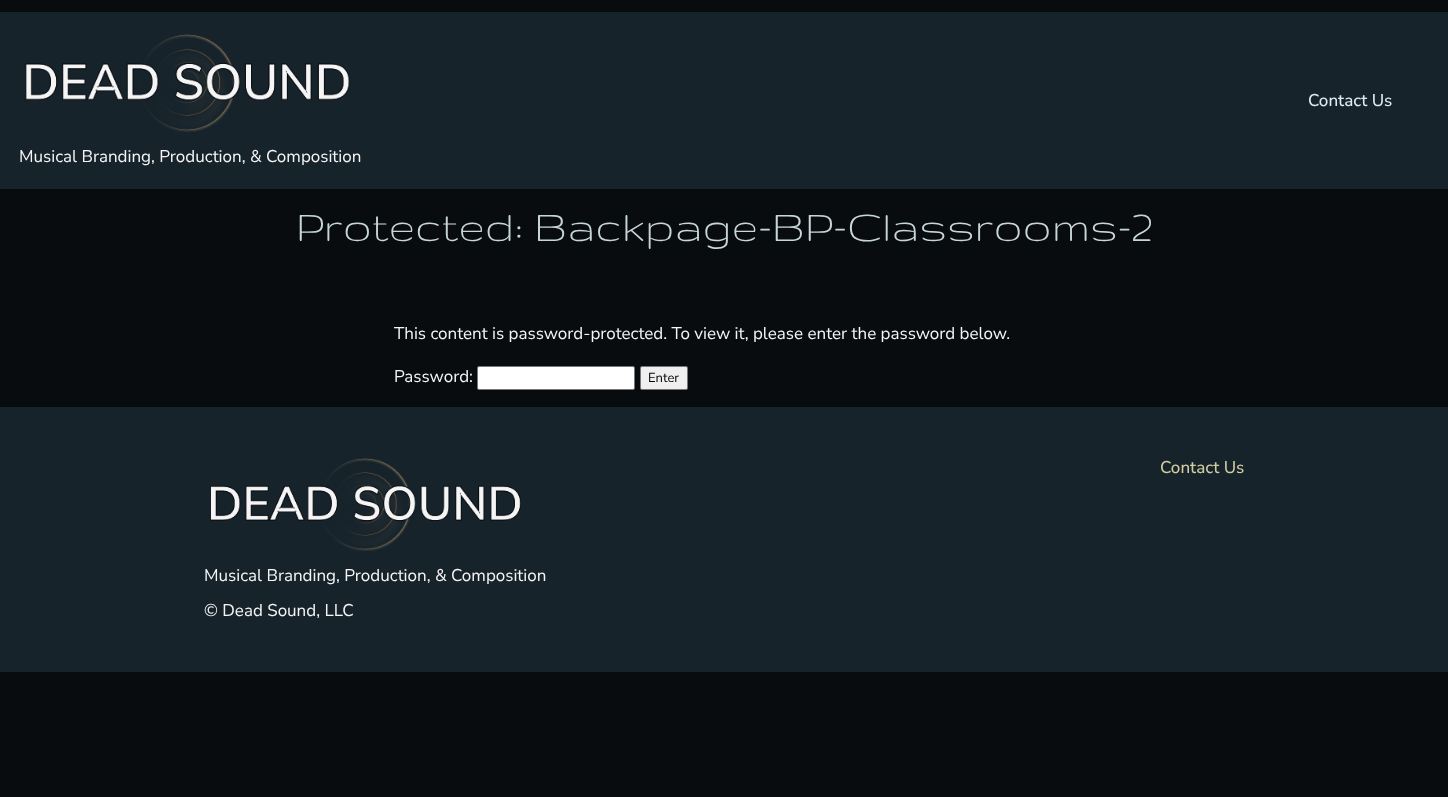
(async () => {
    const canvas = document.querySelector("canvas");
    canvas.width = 1448;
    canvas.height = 797;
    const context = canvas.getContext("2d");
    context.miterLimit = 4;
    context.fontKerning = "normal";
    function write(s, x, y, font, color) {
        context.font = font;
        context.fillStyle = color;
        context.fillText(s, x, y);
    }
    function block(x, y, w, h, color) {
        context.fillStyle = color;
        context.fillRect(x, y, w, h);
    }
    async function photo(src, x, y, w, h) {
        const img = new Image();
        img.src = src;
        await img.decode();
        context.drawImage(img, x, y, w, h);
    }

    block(0, 0, 1448, 797, "rgb(8, 12, 15)");
    block(0, 12, 1448, 177, "rgb(23, 35, 43)");
    write("Contact Us", 1308, 106, "500 17px Nunito Sans", "rgb(220, 236, 247)");
    await photo("media/1.png", 25, 34, 325, 98);
    write("Musical Branding, Production, & Composition", 19, 162, "17px Nunito Sans", "rgb(245, 245, 245)");
    write("Protected: Backpage-BP-Classrooms-2", 296, 241, "48px Gruppo", "rgb(199, 214, 214)");
    write("This content is password-protected. To view it, please enter the password below.", 394, 339, "17px Nunito Sans", "rgb(245, 245, 245)");
    write("Password:", 394, 382, "17px Nunito Sans", "rgb(245, 245, 245)");
    context.fillStyle = "rgb(255, 255, 255)";
    context.beginPath();
    context.roundRect(477.5, 366.5, 157, 23, 1.5);
    context.fill();
    context.strokeStyle = "rgb(118, 118, 118)";
    context.stroke();
    context.fillStyle = "rgb(239, 239, 239)";
    context.beginPath();
    context.roundRect(640.5, 366.5, 47, 23, 1.5);
    context.fill();
    context.stroke();
    write("Enter", 648, 382, "13px Nunito Sans", "rgb(0, 0, 0)");
    block(0, 407, 1448, 265, "rgb(23, 35, 43)");
    write("Contact Us", 1160, 473, "500 17px Nunito Sans", "rgb(210, 204, 161)");
    await photo("media/2.png", 210, 458, 311, 93);
    write("Musical Branding, Production, & Composition", 204, 581, "17px Nunito Sans", "rgb(245, 245, 245)");
    write("© Dead Sound, LLC", 204, 616, "17px Nunito Sans", "rgb(245, 245, 245)");
})();
